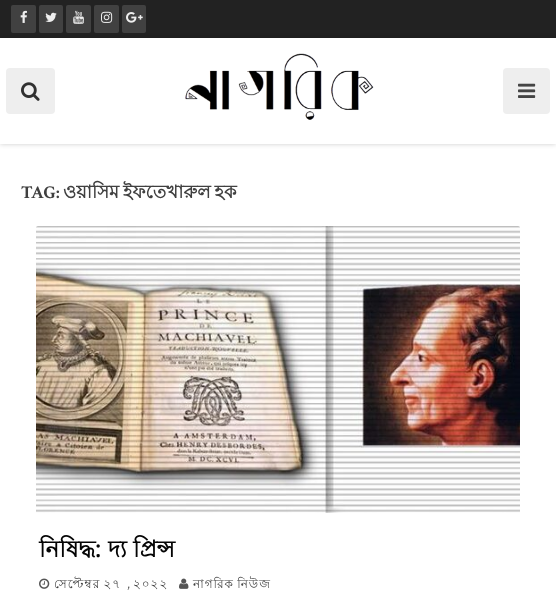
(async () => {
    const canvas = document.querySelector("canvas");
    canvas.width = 556;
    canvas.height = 599;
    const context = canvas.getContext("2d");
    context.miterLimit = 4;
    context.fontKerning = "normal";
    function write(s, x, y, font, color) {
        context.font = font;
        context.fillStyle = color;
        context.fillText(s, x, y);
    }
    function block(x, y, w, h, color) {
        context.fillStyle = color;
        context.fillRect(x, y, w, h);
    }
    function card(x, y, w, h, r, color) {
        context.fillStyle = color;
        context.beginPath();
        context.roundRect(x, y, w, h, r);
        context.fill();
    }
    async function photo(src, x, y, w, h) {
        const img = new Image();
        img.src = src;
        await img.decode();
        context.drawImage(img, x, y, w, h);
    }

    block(0, 0, 556, 599, "rgb(255, 255, 255)");
    block(0, 0, 556, 38, "rgb(34, 34, 34)");
    card(11, 5, 25, 28, 2, "rgb(65, 65, 65)");
    await photo("media/1.png", 20, 10, 7, 13);
    card(39, 5, 24, 28, 2, "rgb(65, 65, 65)");
    await photo("media/2.png", 45, 12, 12, 10);
    card(66, 5, 25, 28, 2, "rgb(65, 65, 65)");
    await photo("media/3.png", 73, 10, 11, 14);
    card(94, 5, 25, 28, 2, "rgb(65, 65, 65)");
    await photo("media/4.png", 101, 11, 12, 12);
    card(122, 5, 24, 28, 2, "rgb(65, 65, 65)");
    await photo("media/5.png", 126, 12, 17, 11);
    context.save();
    context.beginPath();
    context.moveTo(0, 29);
    context.lineTo(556, 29);
    context.lineTo(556, 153);
    context.lineTo(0, 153);
    context.closePath();
    context.moveTo(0, 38);
    context.lineTo(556, 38);
    context.lineTo(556, 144);
    context.lineTo(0, 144);
    context.closePath();
    context.clip("evenodd");
    context.fillStyle = "rgba(0, 0, 0, 0.2)";
    context.filter = "blur(2.5px)";
    context.beginPath();
    context.rect(0, 38, 556, 106);
    context.fill();
    context.filter = "none";
    context.restore();
    card(6, 68, 49, 46, 4, "rgb(238, 238, 238)");
    await photo("media/6.png", 21, 82, 19, 19);
    await photo("media/7.png", 185, 53, 189, 67);
    card(503, 68, 47, 46, 4, "rgb(238, 238, 238)");
    await photo("media/8.png", 518, 83, 18, 15);
    write("TAG:", 21, 198, "bold 18px Crimson Text", "rgb(64, 64, 64)");
    context.wordSpacing = "-1px";
    write("ওয়াসিম ইফতেখারুল হক", 63, 198, "bold 18px Lohit Bengali", "rgb(64, 64, 64)");
    await photo("media/9.png", 36, 226, 484, 287);
    context.wordSpacing = "0px";
    write("নিষিদ্ধ", 39, 557, "bold 23px Lohit Bengali", "rgb(4, 4, 4)");
    write(":", 95, 557, "600 23px Open Sans", "rgb(4, 4, 4)");
    write("দ্য প্রিন্স", 108, 557, "bold 23px Lohit Bengali", "rgb(4, 4, 4)");
    await photo("media/10.png", 39, 578, 11, 11);
    context.letterSpacing = "1px";
    context.wordSpacing = "-1px";
    write("সেপ্টেম্বর ২৭", 54, 588, "12px Lohit Bengali", "rgb(64, 64, 64)");
    context.wordSpacing = "0px";
    write(",", 127, 588, "12px Crimson Text", "rgb(64, 64, 64)");
    write("২০২২", 133, 588, "12px Lohit Bengali", "rgb(64, 64, 64)");
    await photo("media/11.png", 179, 578, 10, 11);
    context.wordSpacing = "-1px";
    write("নাগরিক নিউজ", 193, 588, "12px Lohit Bengali", "rgb(64, 64, 64)");
})();
